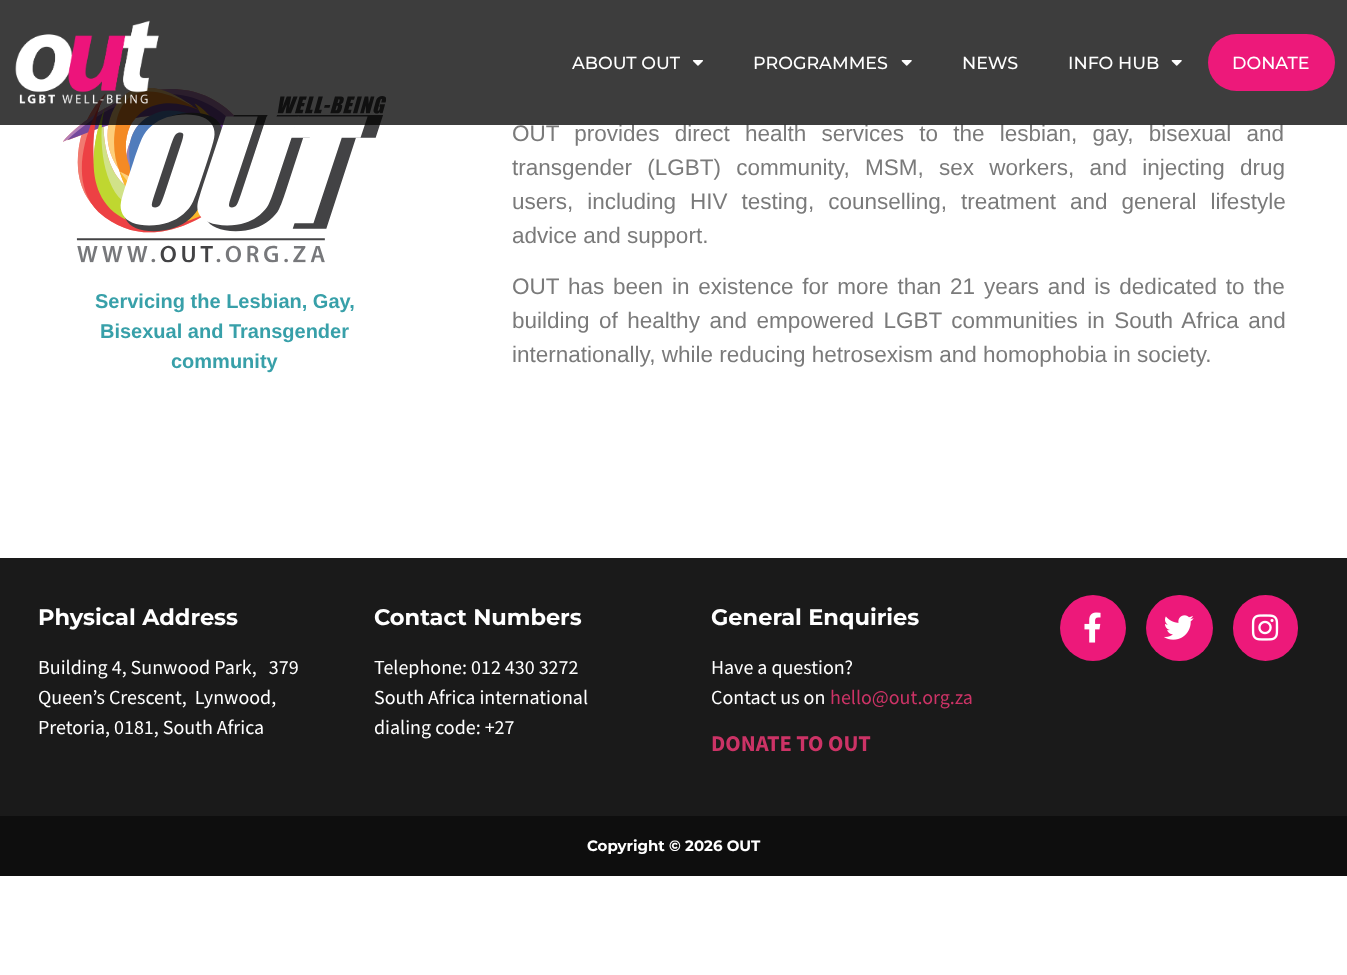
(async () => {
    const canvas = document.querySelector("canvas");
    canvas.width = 1347;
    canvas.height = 975;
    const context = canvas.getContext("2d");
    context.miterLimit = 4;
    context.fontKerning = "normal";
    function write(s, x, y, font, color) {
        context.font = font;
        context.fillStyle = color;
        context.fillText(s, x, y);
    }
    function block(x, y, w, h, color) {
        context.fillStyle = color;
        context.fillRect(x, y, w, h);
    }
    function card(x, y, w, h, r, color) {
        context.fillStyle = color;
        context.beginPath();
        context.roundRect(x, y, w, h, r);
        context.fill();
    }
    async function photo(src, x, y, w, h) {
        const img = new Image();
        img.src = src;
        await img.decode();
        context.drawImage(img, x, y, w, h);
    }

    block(0, 0, 1347, 975, "rgb(255, 255, 255)");
    await photo("media/4.png", 63, 88, 323, 175);
    context.wordSpacing = "9px";
    write("OUT provides direct health services to the lesbian, gay, bisexual and", 512, 141, "22.5px Liberation Sans", "rgb(122, 122, 122)");
    block(0, 0, 1347, 125, "rgba(0, 0, 0, 0.76)");
    await photo("media/1.png", 15, 20, 144, 84);
    context.wordSpacing = "0px";
    write("ABOUT OUT", 572, 69, "500 17.5px Montserrat", "rgb(255, 255, 255)");
    await photo("media/2.png", 692, 60, 11, 6);
    write("PROGRAMMES", 753, 69, "500 17.5px Montserrat", "rgb(255, 255, 255)");
    await photo("media/3.png", 901, 60, 11, 6);
    write("NEWS", 962, 69, "500 17.5px Montserrat", "rgb(255, 255, 255)");
    write("INFO HUB", 1068, 69, "500 17.5px Montserrat", "rgb(255, 255, 255)");
    await photo("media/3.png", 1171, 60, 11, 6);
    card(1208, 34, 127, 57, 28.5, "rgb(237, 25, 122)");
    write("DONATE", 1232, 69, "500 17.5px Montserrat", "rgb(255, 255, 255)");
    write("Servicing the Lesbian, Gay,", 95, 308, "bold 20px Liberation Sans", "rgb(56, 160, 169)");
    write("Bisexual and Transgender", 100, 338, "bold 20px Liberation Sans", "rgb(56, 160, 169)");
    write("community", 171, 368, "bold 20px Liberation Sans", "rgb(56, 160, 169)");
    context.wordSpacing = "9px";
    write("transgender (LGBT) community, MSM, sex workers, and injecting drug", 512, 175, "22.5px Liberation Sans", "rgb(122, 122, 122)");
    context.wordSpacing = "7.75px";
    write("users, including HIV testing, counselling, treatment and general lifestyle", 512, 209, "22.5px Liberation Sans", "rgb(122, 122, 122)");
    context.wordSpacing = "0px";
    write("advice and support.", 512, 243, "22.5px Liberation Sans", "rgb(122, 122, 122)");
    context.wordSpacing = "2.6px";
    write("OUT has been in existence for more than 21 years and is dedicated to the", 512, 294, "22.5px Liberation Sans", "rgb(122, 122, 122)");
    context.wordSpacing = "3.25px";
    write("building of healthy and empowered LGBT communities in South Africa and", 512, 328, "22.5px Liberation Sans", "rgb(122, 122, 122)");
    context.wordSpacing = "0px";
    write("internationally, while reducing hetrosexism and homophobia in society.", 512, 362, "22.5px Liberation Sans", "rgb(122, 122, 122)");
    block(0, 558, 1347, 258, "rgb(26, 26, 26)");
    write("Physical Address", 38, 625, "bold 22.5px Montserrat", "rgb(255, 255, 255)");
    write("Building 4, Sunwood Park,   379", 38, 674, "20px Source Sans Pro", "rgb(255, 255, 255)");
    write("Queen’s Crescent,  Lynwood,", 38, 704, "20px Source Sans Pro", "rgb(255, 255, 255)");
    write("Pretoria, 0181, South Africa", 38, 734, "20px Source Sans Pro", "rgb(255, 255, 255)");
    write("Contact Numbers", 374, 625, "bold 22.5px Montserrat", "rgb(255, 255, 255)");
    write("Telephone: 012 430 3272", 374, 674, "20px Source Sans Pro", "rgb(255, 255, 255)");
    write("South Africa international", 374, 704, "20px Source Sans Pro", "rgb(255, 255, 255)");
    write("dialing code: +27", 374, 734, "20px Source Sans Pro", "rgb(255, 255, 255)");
    write("General Enquiries", 711, 625, "bold 22.5px Montserrat", "rgb(255, 255, 255)");
    write("Have a question?", 711, 674, "20px Source Sans Pro", "rgb(255, 255, 255)");
    write("Contact us on", 711, 704, "20px Source Sans Pro", "rgb(255, 255, 255)");
    write("hello@out.org.za", 830, 704, "20px Source Sans Pro", "rgb(204, 51, 102)");
    write("DONATE TO OUT", 711, 751, "bold 22.5px Source Sans Pro", "rgb(204, 51, 102)");
    context.fillStyle = "rgb(237, 25, 122)";
    context.beginPath();
    context.arc(1093, 628, 33, 0, Math.PI * 2);
    context.fill();
    await photo("media/5.png", 1084, 612, 17, 31);
    card(1146, 595, 67, 66, 33, "rgb(237, 25, 122)");
    await photo("media/6.png", 1164, 615, 30, 25);
    card(1233, 595, 65, 66, 32.5, "rgb(237, 25, 122)");
    await photo("media/7.png", 1251, 614, 28, 27);
    block(0, 816, 1347, 60, "rgb(14, 14, 14)");
    write("Copyright © 2026 OUT", 587, 851, "bold 15px Montserrat", "rgb(255, 255, 255)");
})();
